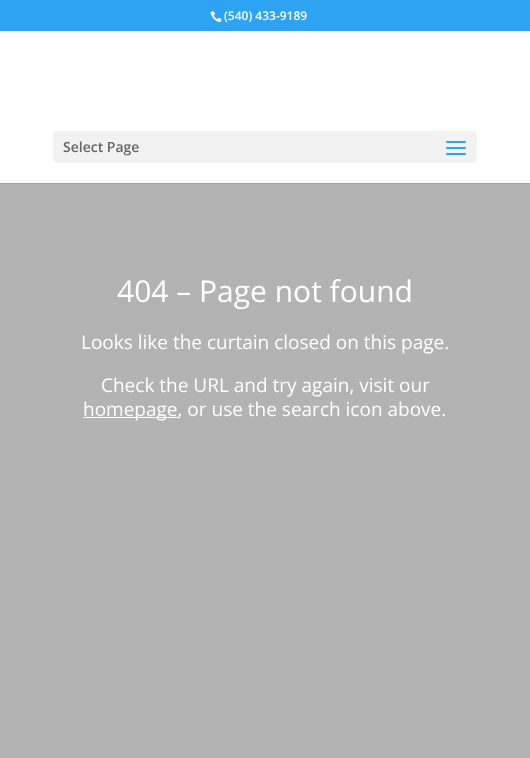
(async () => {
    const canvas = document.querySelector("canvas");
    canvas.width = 530;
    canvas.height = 758;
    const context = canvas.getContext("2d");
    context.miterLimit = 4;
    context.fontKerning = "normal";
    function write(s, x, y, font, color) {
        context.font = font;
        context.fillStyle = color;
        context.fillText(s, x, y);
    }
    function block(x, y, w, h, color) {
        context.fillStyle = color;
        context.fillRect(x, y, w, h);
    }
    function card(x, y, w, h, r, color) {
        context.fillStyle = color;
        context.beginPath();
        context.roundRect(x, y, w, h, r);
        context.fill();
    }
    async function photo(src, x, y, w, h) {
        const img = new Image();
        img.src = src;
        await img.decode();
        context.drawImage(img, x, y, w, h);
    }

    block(0, 0, 530, 758, "rgb(179, 179, 179)");
    block(0, 0, 530, 31, "rgb(46, 163, 242)");
    await photo("media/1.png", 210, 11, 12, 12);
    write("(540) 433-9189", 224, 20, "600 12px Open Sans", "rgb(255, 255, 255)");
    block(0, 183, 530, 1, "rgb(161, 161, 161)");
    block(0, 31, 530, 152, "rgb(255, 255, 255)");
    card(53, 131, 424, 32, 5, "rgb(242, 242, 242)");
    write("Select Page", 63, 152, "600 14px Open Sans", "rgb(102, 102, 102)");
    await photo("media/2.png", 446, 141, 20, 14);
    write("404 – Page not found", 117, 302, "30px Open Sans", "rgb(255, 255, 255)");
    write("Looks like the curtain closed on this page.", 81, 349, "19px Open Sans", "rgb(255, 255, 255)");
    write("Check the URL and try again, visit our", 101, 392, "19px Open Sans", "rgb(255, 255, 255)");
    block(83, 417, 95, 1, "rgb(255, 255, 255)");
    write("homepage, or use the search icon above.", 83, 416, "19px Open Sans", "rgb(255, 255, 255)");
})();
